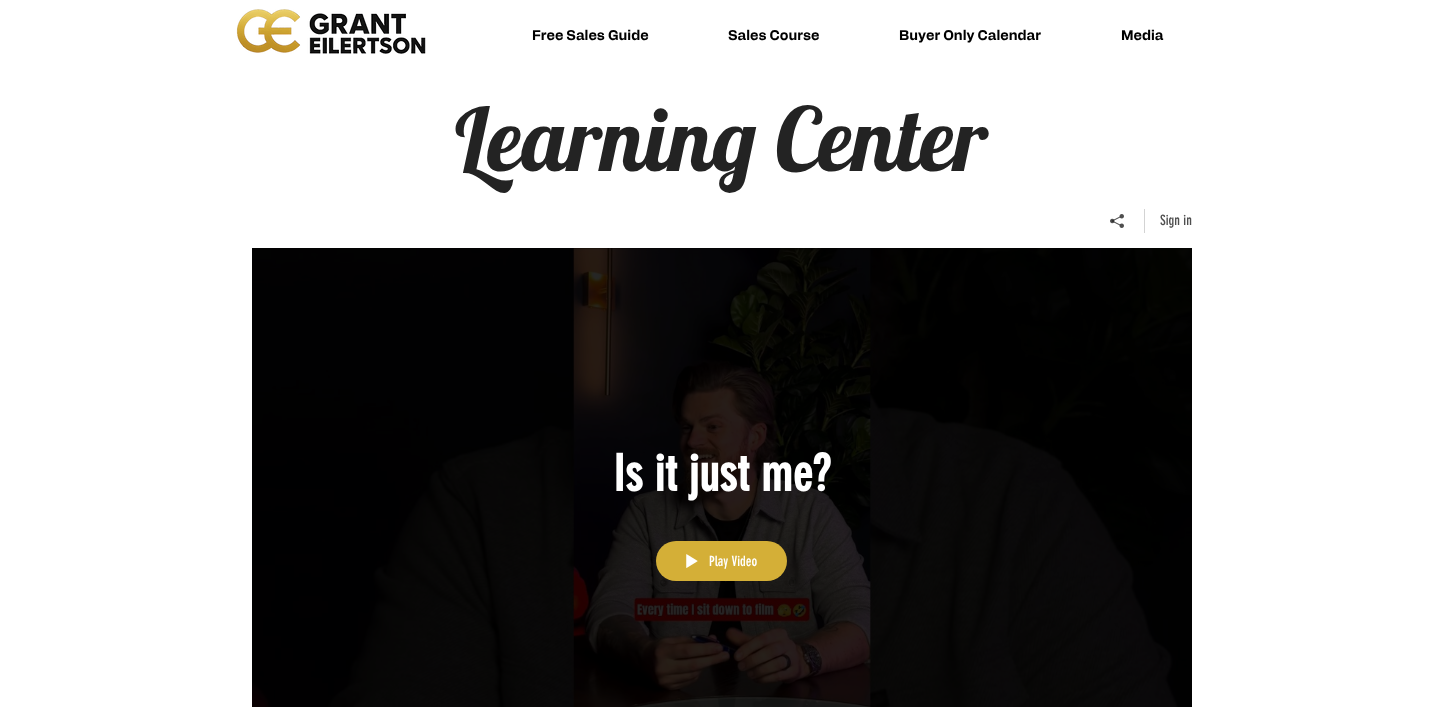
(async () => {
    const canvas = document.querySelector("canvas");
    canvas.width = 1444;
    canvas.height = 707;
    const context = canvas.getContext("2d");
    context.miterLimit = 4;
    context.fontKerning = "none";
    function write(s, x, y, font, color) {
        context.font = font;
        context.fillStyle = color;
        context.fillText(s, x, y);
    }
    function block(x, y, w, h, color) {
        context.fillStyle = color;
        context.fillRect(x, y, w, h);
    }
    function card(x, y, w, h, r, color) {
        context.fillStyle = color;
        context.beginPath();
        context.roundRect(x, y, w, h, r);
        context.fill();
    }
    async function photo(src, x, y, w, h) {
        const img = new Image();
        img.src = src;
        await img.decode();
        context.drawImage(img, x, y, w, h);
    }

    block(0, 0, 1444, 707, "rgb(255, 255, 255)");
    await photo("media/1.png", 236, 9, 190, 45);
    write("Free Sales Guide", 532, 40, "bold 14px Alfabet", "rgb(0, 0, 0)");
    write("Sales Course", 728, 40, "bold 14px Alfabet", "rgb(0, 0, 0)");
    write("Buyer Only Calendar", 899, 40, "bold 14px Alfabet", "rgb(0, 0, 0)");
    write("Media", 1121, 40, "bold 14px Alfabet", "rgb(0, 0, 0)");
    write("Learning Center", 455, 171, "88px Lobster", "rgb(35, 35, 35)");
    block(1144, 209, 1, 24, "rgb(211, 211, 211)");
    await photo("media/2.png", 1110, 214, 14, 14);
    write("Sign in", 1160, 225, "14px 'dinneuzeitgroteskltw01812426'", "rgb(79, 79, 79)");
    await photo("media/3.png", 252, 248, 940, 459);
    await photo("media/4.png", 573, 248, 599, 459);
    write("Is it just me?", 613, 491, "bold 50px 'dinneuzeitgroteskltw01812426'", "rgb(255, 255, 255)");
    card(656, 541, 131, 40, 20, "rgb(212, 175, 55)");
    await photo("media/5.png", 686, 554, 12, 14);
    write("Play Video", 709, 566, "14px 'dinneuzeitgroteskltw01812426'", "rgb(255, 255, 255)");
})();
